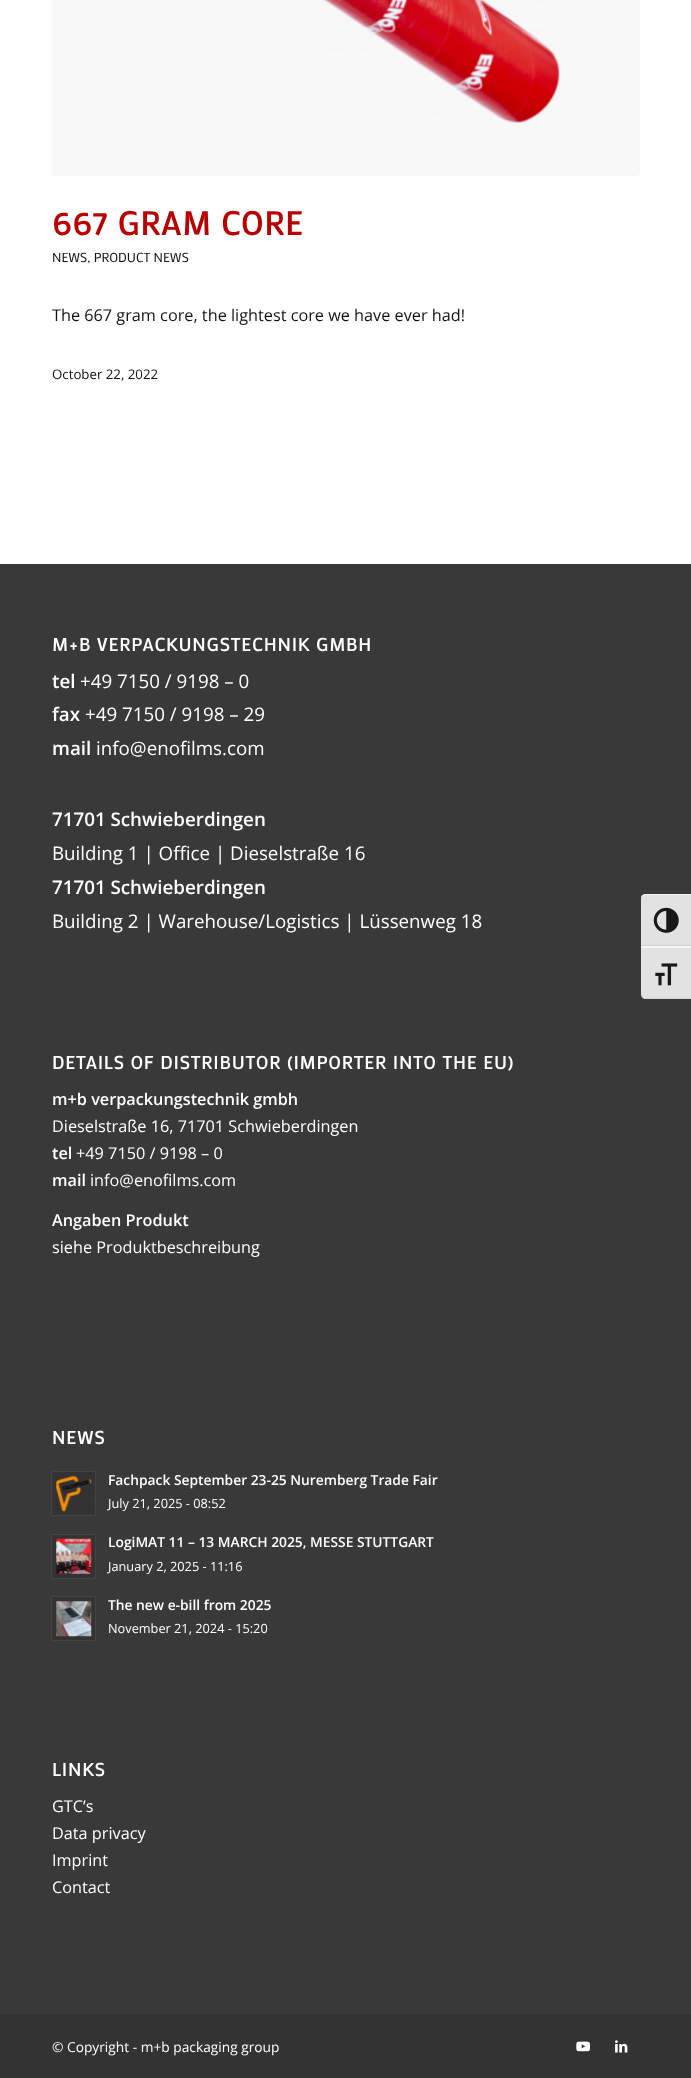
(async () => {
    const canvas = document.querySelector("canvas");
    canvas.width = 691;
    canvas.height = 2078;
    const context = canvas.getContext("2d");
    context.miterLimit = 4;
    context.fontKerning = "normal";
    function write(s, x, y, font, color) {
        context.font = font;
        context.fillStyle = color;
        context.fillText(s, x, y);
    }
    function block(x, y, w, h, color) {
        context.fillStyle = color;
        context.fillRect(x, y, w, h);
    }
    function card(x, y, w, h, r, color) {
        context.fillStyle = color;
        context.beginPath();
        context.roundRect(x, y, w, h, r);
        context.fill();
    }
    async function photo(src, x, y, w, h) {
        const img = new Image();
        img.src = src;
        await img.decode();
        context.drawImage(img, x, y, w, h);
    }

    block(0, 0, 691, 2078, "rgb(57, 57, 57)");
    block(0, 0, 691, 564, "rgb(255, 255, 255)");
    card(51, -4, 589, 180, 4, "rgb(248, 248, 248)");
    await photo("media/1.png", 323, 0, 237, 124);
    context.letterSpacing = "1.25px";
    write("667 GRAM CORE", 52, 235, "bold 32.5px Mako", "rgb(184, 0, 0)");
    context.letterSpacing = "0px";
    write("NEWS, PRODUCT NEWS", 52, 262, "13px Mako", "rgb(20, 20, 20)");
    write("The 667 gram core, the lightest core we have ever had!", 52, 321, "16.25px Open Sans", "rgb(20, 20, 20)");
    write("October 22, 2022", 52, 379, "13.25px Open Sans", "rgb(20, 20, 20)");
    context.letterSpacing = "1.25px";
    write("M+B VERPACKUNGSTECHNIK GMBH", 52, 651, "bold 17.9px Mako", "rgb(255, 255, 255)");
    context.letterSpacing = "0px";
    write("tel", 52, 688, "600 18.75px Open Sans", "rgb(255, 255, 255)");
    write("+49 7150 / 9198 – 0", 80, 688, "18.75px Open Sans", "rgb(255, 255, 255)");
    write("fax", 52, 721, "600 18.75px Open Sans", "rgb(255, 255, 255)");
    write("+49 7150 / 9198 – 29", 85, 721, "18.75px Open Sans", "rgb(255, 255, 255)");
    write("mail", 52, 755, "600 18.75px Open Sans", "rgb(255, 255, 255)");
    write("info@enofilms.com", 96, 755, "18.75px Open Sans", "rgb(255, 255, 255)");
    write("71701 Schwieberdingen", 52, 826, "600 18.75px Open Sans", "rgb(255, 255, 255)");
    write("Building 1 | Office | Dieselstraße 16", 52, 860, "18.75px Open Sans", "rgb(255, 255, 255)");
    write("71701 Schwieberdingen", 52, 894, "600 18.75px Open Sans", "rgb(255, 255, 255)");
    write("Building 2 | Warehouse/Logistics | Lüssenweg 18", 52, 928, "18.75px Open Sans", "rgb(255, 255, 255)");
    context.letterSpacing = "1.25px";
    write("DETAILS OF DISTRIBUTOR (IMPORTER INTO THE EU)", 52, 1069, "bold 17.9px Mako", "rgb(255, 255, 255)");
    context.letterSpacing = "0px";
    write("m+b verpackungstechnik gmbh", 52, 1105, "600 16.25px Open Sans", "rgb(255, 255, 255)");
    write("Dieselstraße 16, 71701 Schwieberdingen", 52, 1132, "16.25px Open Sans", "rgb(255, 255, 255)");
    write("tel", 52, 1159, "600 16.25px Open Sans", "rgb(255, 255, 255)");
    write("+49 7150 / 9198 – 0", 76, 1159, "16.25px Open Sans", "rgb(255, 255, 255)");
    write("mail", 52, 1186, "600 16.25px Open Sans", "rgb(255, 255, 255)");
    write("info@enofilms.com", 90, 1186, "16.25px Open Sans", "rgb(255, 255, 255)");
    write("Angaben Produkt", 52, 1226, "600 16.25px Open Sans", "rgb(255, 255, 255)");
    write("siehe Produktbeschreibung", 52, 1253, "16.25px Open Sans", "rgb(255, 255, 255)");
    context.letterSpacing = "1.25px";
    write("NEWS", 52, 1444, "bold 17.9px Mako", "rgb(255, 255, 255)");
    context.fillStyle = "rgb(51, 51, 51)";
    context.beginPath();
    context.rect(51.5, 1471.5, 44, 44);
    context.fill();
    context.strokeStyle = "rgb(68, 68, 68)";
    context.stroke();
    await photo("media/2.png", 56, 1476, 36, 36);
    context.letterSpacing = "0px";
    write("Fachpack September 23-25 Nuremberg Trade Fair", 108, 1485, "600 13.8px Open Sans", "rgb(255, 255, 255)");
    write("July 21, 2025 - 08:52", 108, 1508, "12.75px Open Sans", "rgb(255, 255, 255)");
    context.fillStyle = "rgb(51, 51, 51)";
    context.beginPath();
    context.rect(51.5, 1534.5, 44, 44);
    context.fill();
    context.stroke();
    await photo("media/3.png", 56, 1538, 36, 36);
    write("LogiMAT 11 – 13 MARCH 2025, MESSE STUTTGART", 108, 1547, "600 13.8px Open Sans", "rgb(255, 255, 255)");
    write("January 2, 2025 - 11:16", 108, 1571, "12.75px Open Sans", "rgb(255, 255, 255)");
    context.fillStyle = "rgb(51, 51, 51)";
    context.beginPath();
    context.rect(51.5, 1596.5, 44, 44);
    context.fill();
    context.stroke();
    await photo("media/4.png", 56, 1601, 36, 36);
    write("The new e-bill from 2025", 108, 1610, "600 13.8px Open Sans", "rgb(255, 255, 255)");
    write("November 21, 2024 - 15:20", 108, 1633, "12.75px Open Sans", "rgb(255, 255, 255)");
    context.letterSpacing = "1.25px";
    write("LINKS", 52, 1776, "bold 17.9px Mako", "rgb(255, 255, 255)");
    context.letterSpacing = "0px";
    write("GTC’s", 52, 1812, "16.25px Open Sans", "rgb(255, 255, 255)");
    write("Data privacy", 52, 1839, "16.25px Open Sans", "rgb(255, 255, 255)");
    write("Imprint", 52, 1866, "16.25px Open Sans", "rgb(255, 255, 255)");
    write("Contact", 52, 1893, "16.25px Open Sans", "rgb(255, 255, 255)");
    block(0, 2014, 691, 64, "rgb(51, 51, 51)");
    write("© Copyright - m+b packaging group", 52, 2052, "13.75px Open Sans", "rgb(255, 255, 255)");
    await photo("media/5.png", 576, 2041, 14, 11);
    await photo("media/6.png", 615, 2040, 13, 13);
    context.fillStyle = "rgb(226, 226, 226)";
    context.beginPath();
    context.roundRect(641, 894, 50, 52, [5, 0, 0, 0]);
    context.fill();
    context.fillStyle = "rgb(245, 245, 245)";
    context.beginPath();
    context.moveTo(646, 894);
    context.lineTo(691, 894);
    context.lineTo(691, 895);
    context.lineTo(646, 895);
    context.bezierCurveTo(644, 895, 642, 896, 641, 898);
    context.bezierCurveTo(641, 895, 644, 894, 646, 894);
    context.closePath();
    context.fill();
    block(641, 945, 50, 1, "rgb(210, 210, 210)");
    await photo("media/7.png", 653, 907, 26, 26);
    context.fillStyle = "rgb(226, 226, 226)";
    context.beginPath();
    context.roundRect(641, 946, 50, 53, [0, 0, 0, 5]);
    context.fill();
    block(641, 946, 50, 2, "rgb(245, 245, 245)");
    context.fillStyle = "rgb(210, 210, 210)";
    context.beginPath();
    context.moveTo(691, 999);
    context.lineTo(691, 998);
    context.lineTo(646, 998);
    context.bezierCurveTo(644, 998, 642, 997, 641, 995);
    context.lineTo(641, 996);
    context.bezierCurveTo(642, 997, 643, 998, 644, 999);
    context.closePath();
    context.fill();
    await photo("media/8.png", 655, 963, 23, 23);
})();
